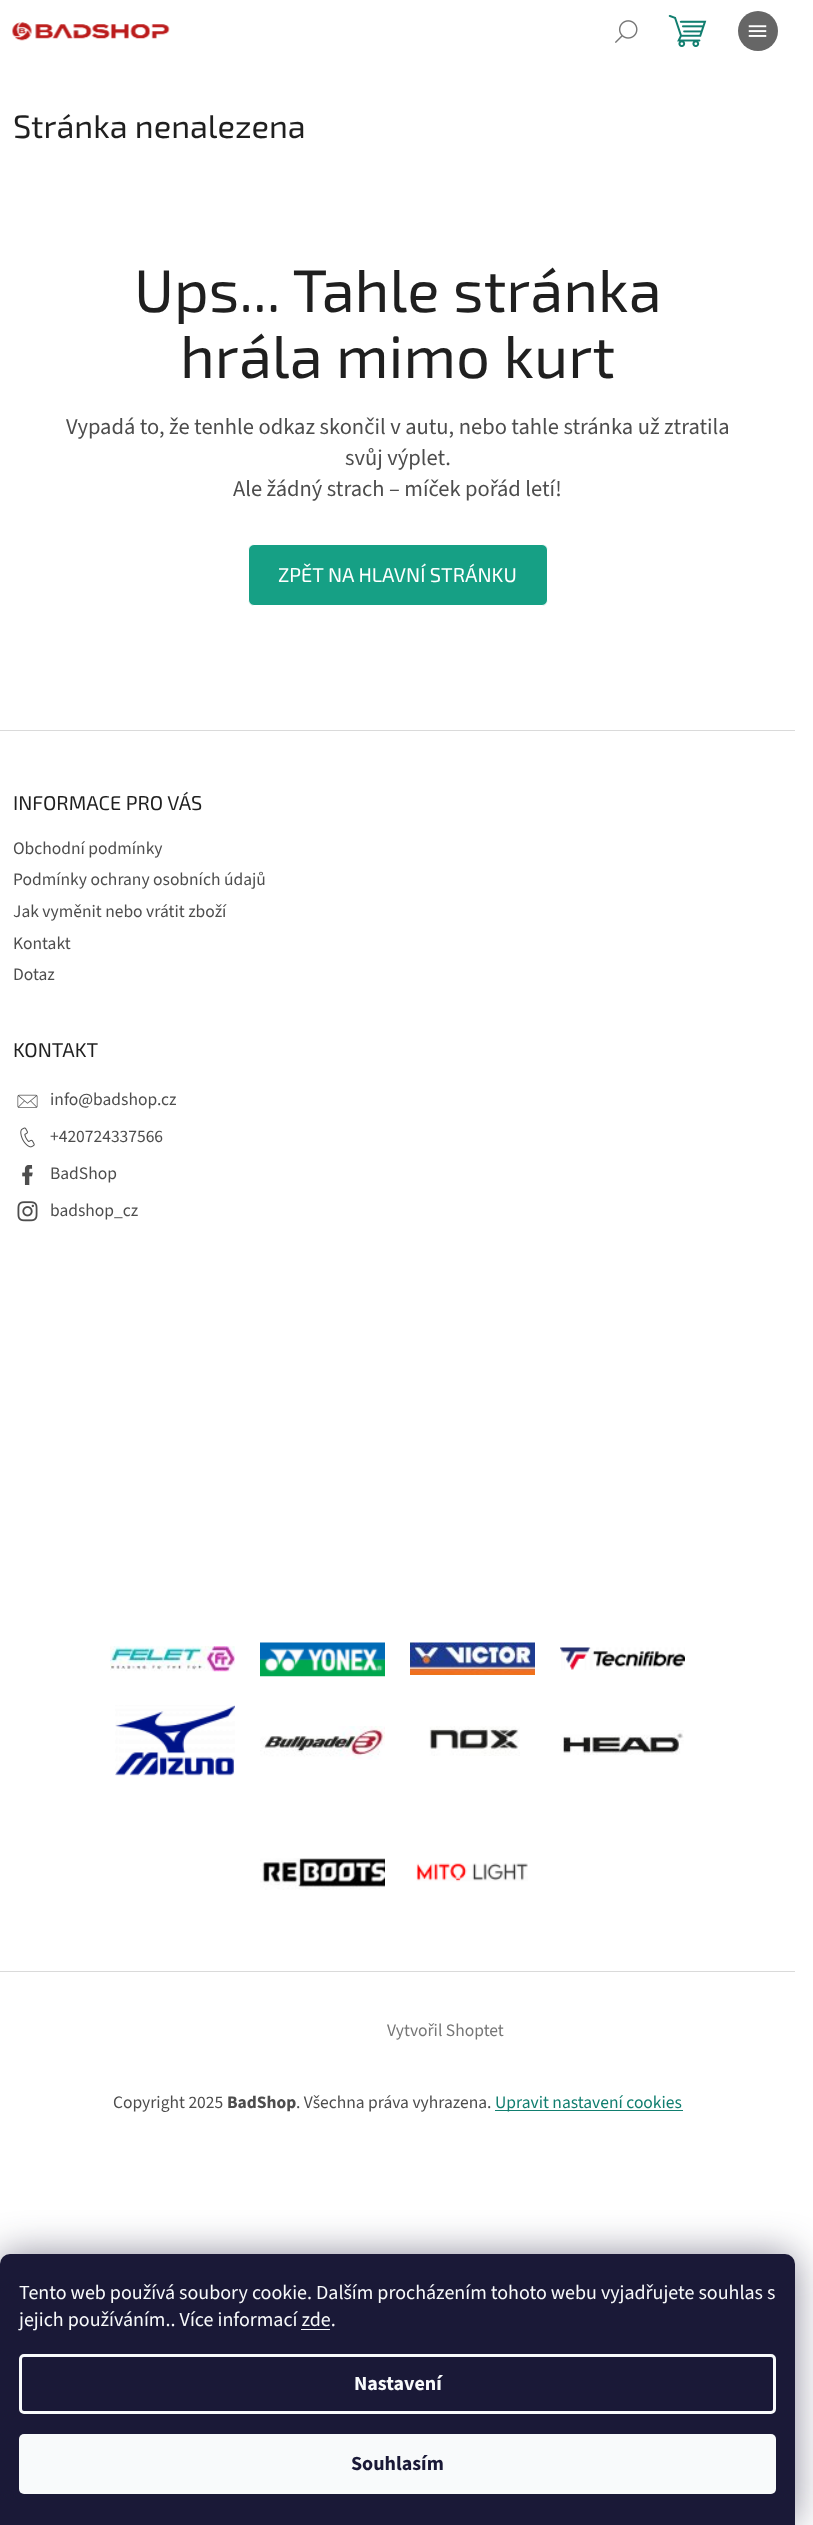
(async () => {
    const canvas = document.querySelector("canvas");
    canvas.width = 813;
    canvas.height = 2525;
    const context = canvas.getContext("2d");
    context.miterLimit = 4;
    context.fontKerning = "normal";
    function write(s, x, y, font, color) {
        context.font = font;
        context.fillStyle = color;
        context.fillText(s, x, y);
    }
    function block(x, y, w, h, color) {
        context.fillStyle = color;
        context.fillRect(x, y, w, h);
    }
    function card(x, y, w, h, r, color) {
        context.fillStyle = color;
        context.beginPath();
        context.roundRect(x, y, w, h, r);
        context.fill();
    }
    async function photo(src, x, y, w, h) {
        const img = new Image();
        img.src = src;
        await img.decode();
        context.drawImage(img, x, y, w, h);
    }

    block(0, 0, 813, 2525, "rgb(255, 255, 255)");
    await photo("media/1.png", 615, 20, 23, 23);
    context.fillStyle = "rgb(102, 102, 102)";
    context.beginPath();
    context.arc(758, 31, 20, 0, Math.PI * 2);
    context.fill();
    await photo("media/2.png", 748, 25, 19, 12);
    await photo("media/3.png", 12, 22, 158, 19);
    await photo("media/4.png", 668, 14, 39, 33);
    write("Stránka nenalezena", 13, 138, "32.5px 'Exo 2'", "rgb(31, 31, 31)");
    write("Ups... Tahle stránka", 134, 312, "60px 'Exo 2'", "rgb(31, 31, 31)");
    write("hrála mimo kurt", 180, 378, "60px 'Exo 2'", "rgb(31, 31, 31)");
    write("Vypadá to, že tenhle odkaz skončil v autu, nebo tahle stránka už ztratila", 66, 434, "22.5px 'Source Sans 3'", "rgb(77, 77, 77)");
    write("svůj výplet.", 345, 465, "22.5px 'Source Sans 3'", "rgb(77, 77, 77)");
    write("Ale žádný strach – míček pořád letí!", 233, 496, "22.5px 'Source Sans 3'", "rgb(77, 77, 77)");
    context.fillStyle = "rgb(22, 160, 133)";
    context.beginPath();
    context.roundRect(248.5, 544.5, 299, 61, 5.5);
    context.fill();
    context.strokeStyle = "rgb(255, 255, 255)";
    context.stroke();
    write("ZPĚT NA HLAVNÍ STRÁNKU", 278, 582, "20px 'Exo 2'", "rgb(255, 255, 255)");
    block(0, 730, 795, 1, "rgb(218, 218, 218)");
    write("INFORMACE PRO VÁS", 13, 810, "20px 'Exo 2'", "rgb(31, 31, 31)");
    write("Obchodní podmínky", 13, 854, "17.5px 'Source Sans 3'", "rgb(77, 77, 77)");
    write("Podmínky ochrany osobních údajů", 13, 885, "17.5px 'Source Sans 3'", "rgb(77, 77, 77)");
    write("Jak vyměnit nebo vrátit zboží", 13, 917, "17.5px 'Source Sans 3'", "rgb(77, 77, 77)");
    write("Kontakt", 13, 949, "17.5px 'Source Sans 3'", "rgb(77, 77, 77)");
    write("Dotaz", 13, 980, "17.5px 'Source Sans 3'", "rgb(77, 77, 77)");
    write("KONTAKT", 13, 1057, "20px 'Exo 2'", "rgb(31, 31, 31)");
    await photo("media/5.png", 17, 1094, 21, 14);
    write("info@badshop.cz", 50, 1105, "17.5px 'Source Sans 3'", "rgb(77, 77, 77)");
    await photo("media/6.png", 20, 1127, 15, 21);
    write("+420724337566", 50, 1142, "17.5px 'Source Sans 3'", "rgb(77, 77, 77)");
    await photo("media/7.png", 22, 1165, 11, 21);
    write("BadShop", 50, 1179, "17.5px 'Source Sans 3'", "rgb(77, 77, 77)");
    await photo("media/8.png", 17, 1201, 21, 21);
    write("badshop_cz", 50, 1216, "17.5px 'Source Sans 3'", "rgb(77, 77, 77)");
    await photo("media/9.png", 110, 1646, 125, 26);
    await photo("media/10.png", 260, 1642, 125, 35);
    await photo("media/11.png", 410, 1642, 125, 33);
    await photo("media/12.png", 560, 1647, 125, 23);
    await photo("media/13.png", 115, 1705, 120, 71);
    await photo("media/14.png", 260, 1726, 125, 34);
    await photo("media/15.png", 429, 1726, 91, 30);
    await photo("media/16.png", 560, 1730, 124, 25);
    await photo("media/17.png", 260, 1858, 125, 32);
    await photo("media/18.png", 416, 1863, 112, 19);
    block(0, 1971, 795, 1, "rgb(218, 218, 218)");
    write("Vytvořil Shoptet", 387, 2036, "17.5px 'Source Sans 3'", "rgb(118, 118, 118)");
    write("Copyright 2025", 113, 2108, "17.5px 'Source Sans 3'", "rgb(77, 77, 77)");
    write("BadShop", 227, 2108, "bold 17.5px 'Source Sans 3'", "rgb(77, 77, 77)");
    write(". Všechna práva vyhrazena.", 296, 2108, "17.5px 'Source Sans 3'", "rgb(77, 77, 77)");
    block(495, 2110, 188, 1, "rgb(17, 126, 111)");
    write("Upravit nastavení cookies", 495, 2108, "17.5px 'Source Sans 3'", "rgb(17, 126, 111)");
    context.fillStyle = "rgba(27, 25, 57, 0.5)";
    context.filter = "blur(19px)";
    context.beginPath();
    context.roundRect(0, 2254, 795, 271, 10);
    context.fill();
    context.filter = "none";
    context.fillStyle = "rgb(26, 25, 55)";
    context.beginPath();
    context.roundRect(0, 2254, 795, 271, [10, 10, 0, 0]);
    context.fill();
    write("Tento web používá soubory cookie. Dalším procházením tohoto webu vyjadřujete souhlas s", 19, 2299, "20px 'Source Sans 3'", "rgb(248, 250, 251)");
    write("jejich používáním.. Více informací zde.", 19, 2326, "20px 'Source Sans 3'", "rgb(248, 250, 251)");
    block(301, 2329, 29, 1, "rgb(248, 250, 251)");
    context.beginPath();
    context.roundRect(20.5, 2355.5, 754, 57, 3.5);
    context.strokeStyle = "rgb(248, 250, 251)";
    context.lineWidth = 3;
    context.stroke();
    write("Nastavení", 354, 2390, "bold 20px 'Source Sans 3'", "rgb(248, 250, 251)");
    card(19, 2434, 757, 60, 5, "rgb(248, 250, 251)");
    write("Souhlasím", 351, 2470, "bold 20px 'Source Sans 3'", "rgb(26, 25, 55)");
})();
